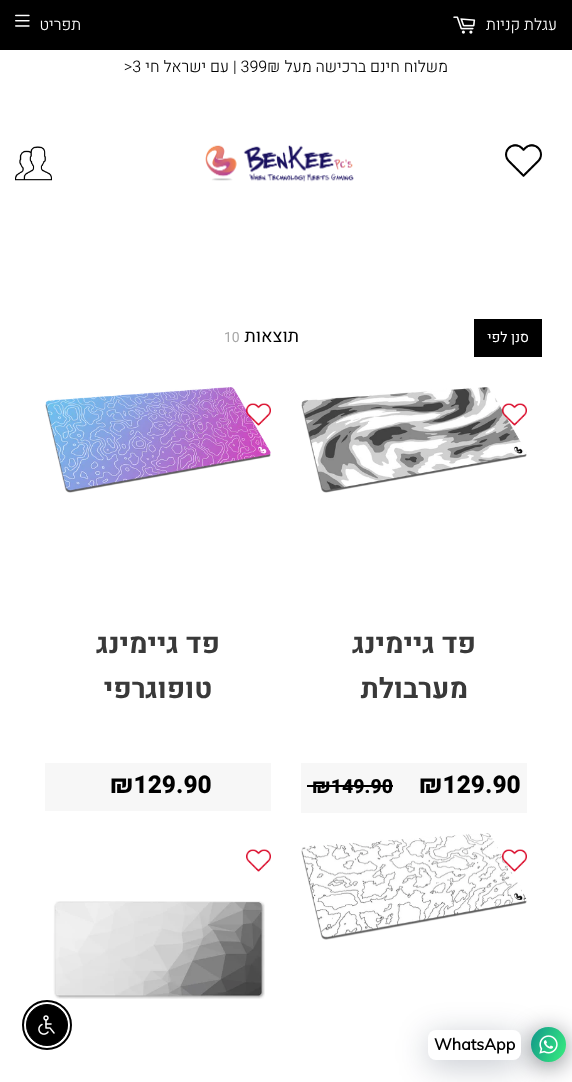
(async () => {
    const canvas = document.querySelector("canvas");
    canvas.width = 572;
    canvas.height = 1082;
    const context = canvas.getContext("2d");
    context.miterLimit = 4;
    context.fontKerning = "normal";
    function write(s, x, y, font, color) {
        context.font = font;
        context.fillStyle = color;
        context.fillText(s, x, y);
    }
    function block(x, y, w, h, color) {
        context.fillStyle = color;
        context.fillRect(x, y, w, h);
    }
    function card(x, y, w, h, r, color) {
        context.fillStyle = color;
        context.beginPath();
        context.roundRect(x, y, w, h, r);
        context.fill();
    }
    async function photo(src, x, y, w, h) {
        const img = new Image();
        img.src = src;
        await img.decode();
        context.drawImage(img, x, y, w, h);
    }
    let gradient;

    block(0, 0, 572, 1082, "rgb(255, 255, 255)");
    block(0, 0, 572, 50, "rgb(0, 0, 0)");
    context.direction = "rtl";
    write("עגלת קניות", 557, 30, "300 16px Heebo", "rgb(255, 255, 255)");
    await photo("media/1.png", 453, 16, 23, 18);
    write("תפריט", 81, 30, "300 16px Heebo", "rgb(255, 255, 255)");
    await photo("media/2.png", 15, 14, 15, 13);
    write("משלוח חינם ברכישה מעל", 448, 72, "300 16px Heebo", "rgb(0, 0, 0)");
    context.direction = "ltr";
    write("| 399₪", 233, 72, "300 16px Heebo", "rgb(0, 0, 0)");
    context.direction = "rtl";
    write("עם ישראל חי", 229, 72, "300 16px Heebo", "rgb(0, 0, 0)");
    context.direction = "ltr";
    write(">3", 124, 72, "300 16px Heebo", "rgb(0, 0, 0)");
    await photo("media/3.png", 505, 144, 37, 33);
    await photo("media/4.png", 205, 145, 149, 37);
    await photo("media/5.png", 15, 146, 37, 35);
    block(474, 319, 68, 38, "rgb(0, 0, 0)");
    context.direction = "rtl";
    write("סנן לפי", 529, 342, "14px Heebo", "rgb(255, 255, 255)");
    write("תוצאות", 299, 342, "18px Heebo", "rgb(0, 0, 0)");
    context.direction = "ltr";
    write("10", 224, 342, "14px Heebo", "rgb(168, 168, 168)");
    await photo("media/7.png", 301, 387, 226, 106);
    await photo("media/6.png", 502, 403, 25, 23);
    context.direction = "rtl";
    write("פד גיימינג", 476, 653, "bold 28px Heebo", "rgb(57, 57, 57)");
    write("מערבולת", 468, 698, "bold 28px Heebo", "rgb(57, 57, 57)");
    block(301, 763, 226, 50, "rgb(247, 247, 247)");
    context.direction = "ltr";
    write("₪129.90", 419, 793, "800 24.5px Heebo", "rgb(0, 0, 0)");
    write("₪149.90", 312, 793, "800 19.5px Heebo", "rgb(0, 0, 0)");
    block(307, 785, 86, 2, "rgb(0, 0, 0)");
    await photo("media/9.png", 45, 387, 226, 106);
    await photo("media/8.png", 246, 403, 25, 23);
    context.direction = "rtl";
    write("פד גיימינג", 220, 653, "bold 28px Heebo", "rgb(57, 57, 57)");
    write("טופוגרפי", 212, 698, "bold 28px Heebo", "rgb(57, 57, 57)");
    block(45, 763, 226, 48, "rgb(247, 247, 247)");
    context.direction = "ltr";
    write("₪129.90", 110, 793, "800 24.5px Heebo", "rgb(0, 0, 0)");
    await photo("media/10.png", 301, 833, 226, 107);
    await photo("media/11.png", 502, 849, 25, 23);
    await photo("media/12.png", 246, 849, 25, 23);
    await photo("media/13.png", 53, 901, 212, 98);
    context.fillStyle = "rgba(2, 6, 16, 0.5)";
    context.filter = "blur(12px)";
    context.beginPath();
    context.roundRect(531, 1031, 35, 35, 17.5);
    context.fill();
    context.filter = "none";
    gradient = context.createLinearGradient(527, 1035, 570, 1054);
    gradient.addColorStop(0, "rgb(17, 153, 142)");
    gradient.addColorStop(1, "rgb(56, 239, 125)");
    context.fillStyle = gradient;
    context.beginPath();
    context.arc(548.5, 1044.5, 17.5, 0, Math.PI * 2);
    context.fill();
    context.fillStyle = "rgba(0, 18, 46, 0.24)";
    context.filter = "blur(16px)";
    context.beginPath();
    context.roundRect(428, 1036, 93, 30, 8);
    context.fill();
    context.filter = "none";
    await photo("media/14.png", 539, 1035, 19, 19);
    card(428, 1030, 93, 30, 8, "rgb(255, 255, 255)");
    write("WhatsApp", 434, 1050, "bold 16px Muli", "rgb(0, 0, 0)");
    context.beginPath();
    context.arc(47, 1025, 24, 0, Math.PI * 2);
    context.strokeStyle = "rgb(0, 0, 0)";
    context.lineWidth = 2;
    context.stroke();
    context.beginPath();
    context.arc(47, 1025, 20.5, 0, Math.PI * 2);
    context.fill();
    context.lineWidth = 1;
    context.stroke();
    await photo("media/15.png", 38, 1015, 17, 20);
})();
